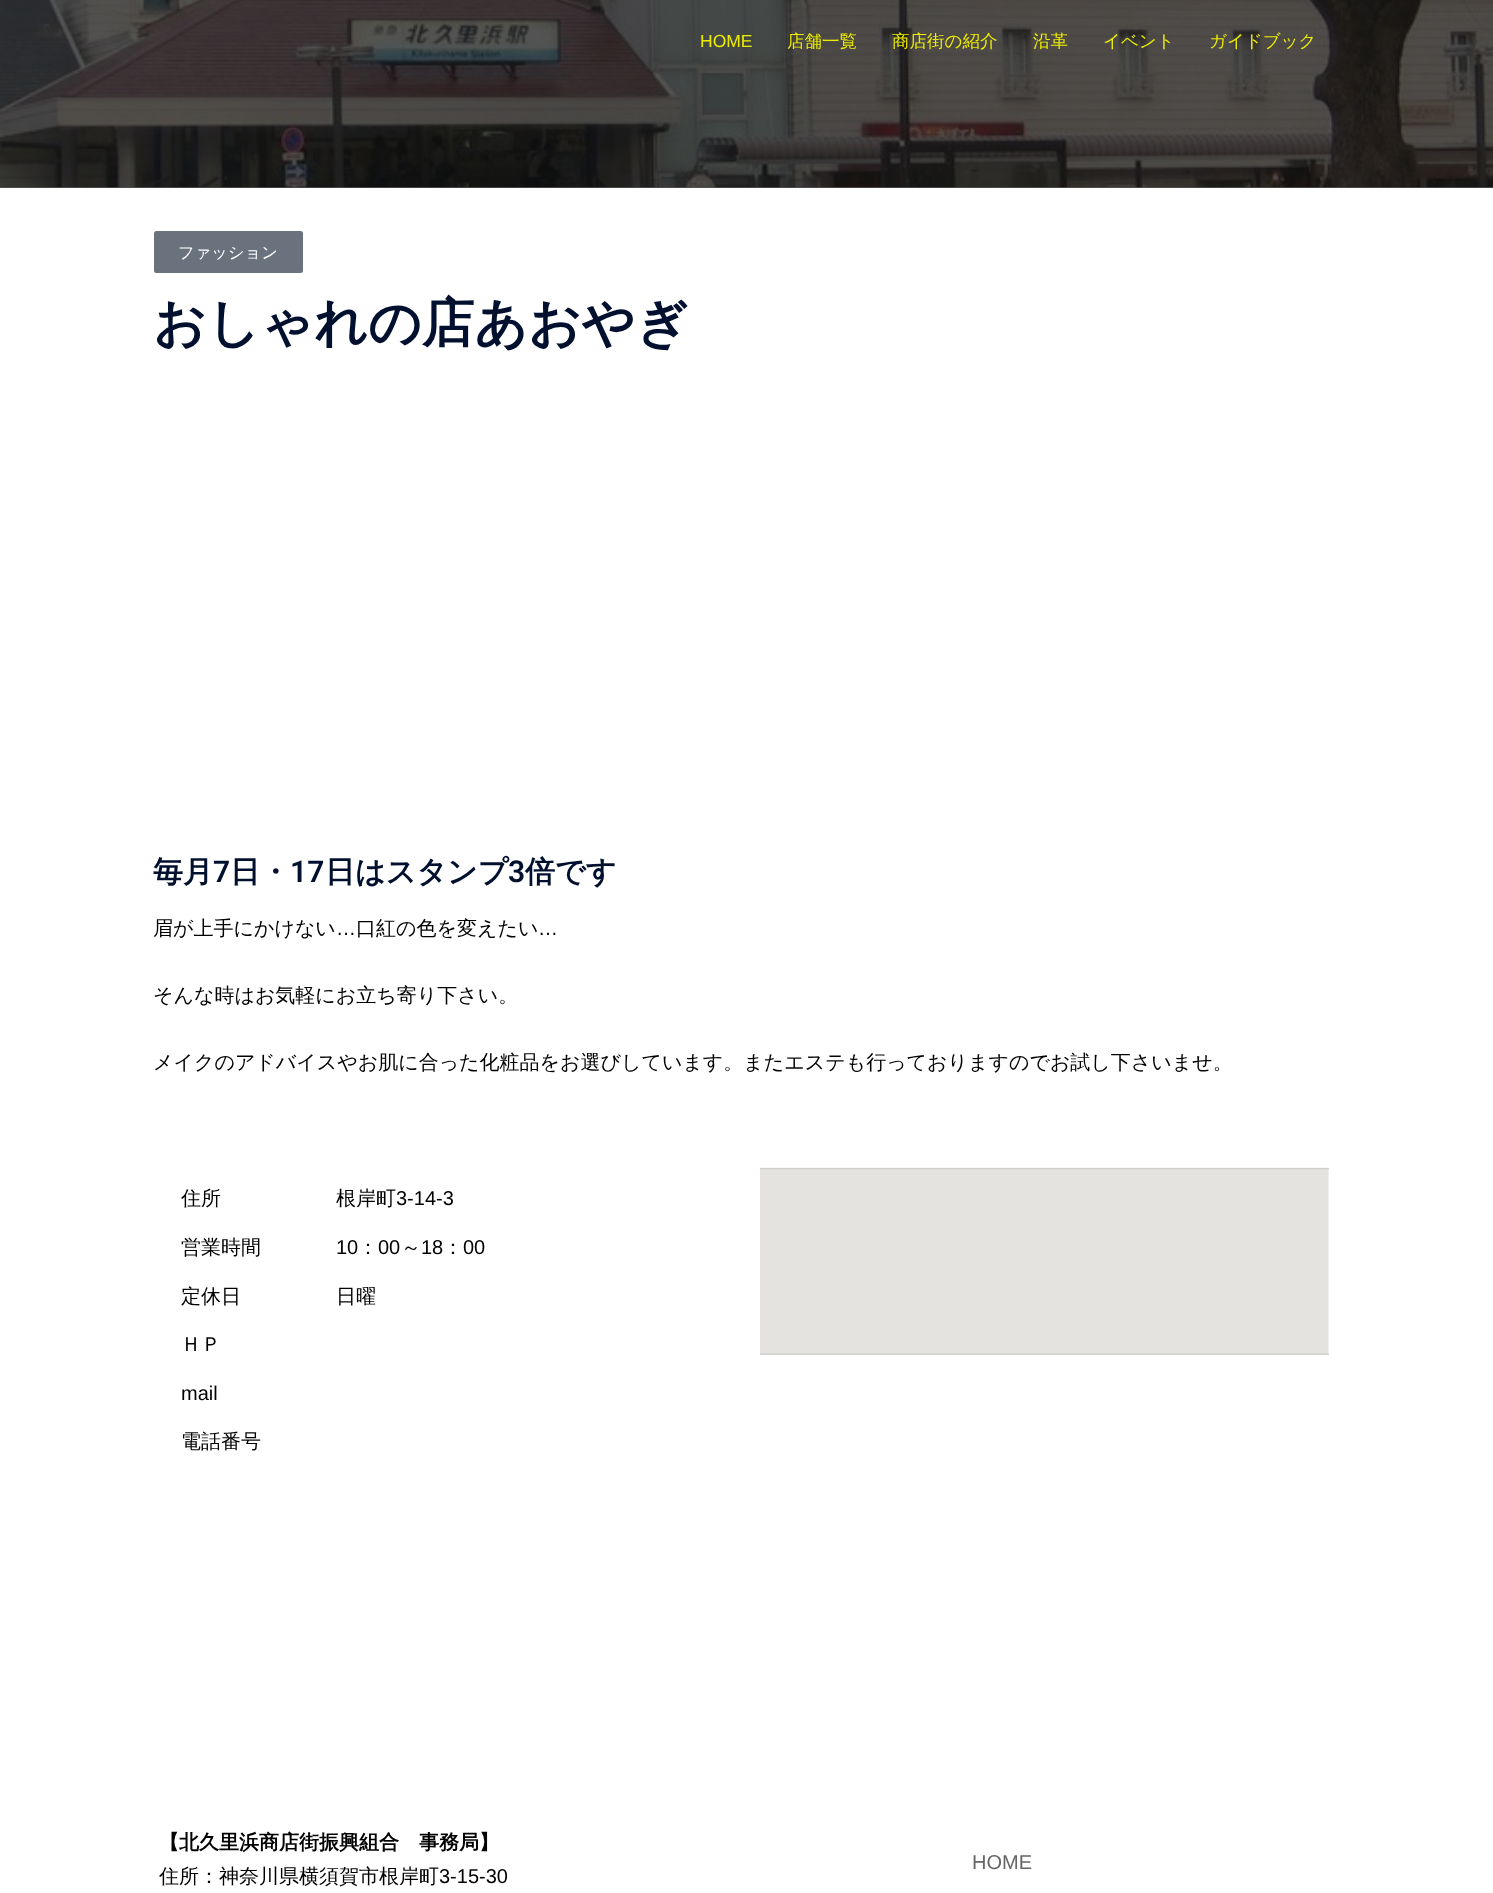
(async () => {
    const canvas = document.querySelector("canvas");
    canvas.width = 1493;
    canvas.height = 1893;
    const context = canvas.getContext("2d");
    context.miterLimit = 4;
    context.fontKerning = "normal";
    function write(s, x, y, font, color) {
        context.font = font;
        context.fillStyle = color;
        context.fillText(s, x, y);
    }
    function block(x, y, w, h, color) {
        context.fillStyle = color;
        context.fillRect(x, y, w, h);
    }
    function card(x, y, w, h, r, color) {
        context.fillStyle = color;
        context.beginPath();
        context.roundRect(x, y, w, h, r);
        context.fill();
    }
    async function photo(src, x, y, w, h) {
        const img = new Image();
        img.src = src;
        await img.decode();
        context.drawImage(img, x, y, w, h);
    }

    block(0, 0, 1493, 1893, "rgb(255, 255, 255)");
    block(0, 187, 1493, 1, "rgb(84, 84, 84)");
    await photo("media/1.png", 0, 0, 1493, 188);
    write("HOME", 700, 47, "17.5px Liberation Sans", "rgb(237, 237, 0)");
    write("店舗一覧", 787, 47, "500 17.5px WenQuanYi Zen Hei", "rgb(237, 237, 0)");
    write("商店街の紹介", 892, 47, "500 17.5px WenQuanYi Zen Hei", "rgb(237, 237, 0)");
    write("沿革", 1033, 47, "500 17.5px WenQuanYi Zen Hei", "rgb(237, 237, 0)");
    write("イベント", 1103, 47, "500 17.5px WenQuanYi Zen Hei", "rgb(237, 237, 0)");
    write("ガイドブック", 1209, 47, "500 17.5px WenQuanYi Zen Hei", "rgb(237, 237, 0)");
    card(154, 231, 149, 42, 2.5, "rgb(105, 114, 125)");
    write("ファッション", 178, 258, "500 16.25px WenQuanYi Zen Hei", "rgb(255, 255, 255)");
    write("おしゃれの店あおやぎ", 153, 341, "bold 52.5px WenQuanYi Zen Hei", "rgb(0, 16, 46)");
    write("毎月", 153, 882, "bold 30px WenQuanYi Zen Hei", "rgb(0, 16, 46)");
    write("7", 213, 882, "600 30px Roboto", "rgb(0, 16, 46)");
    write("日・", 230, 882, "bold 30px WenQuanYi Zen Hei", "rgb(0, 16, 46)");
    write("17", 290, 882, "600 30px Roboto", "rgb(0, 16, 46)");
    write("日はスタンプ", 325, 882, "bold 30px WenQuanYi Zen Hei", "rgb(0, 16, 46)");
    write("3", 508, 882, "600 30px Roboto", "rgb(0, 16, 46)");
    write("倍です", 525, 882, "bold 30px WenQuanYi Zen Hei", "rgb(0, 16, 46)");
    write("眉が上手にかけない", 153, 935, "500 20px WenQuanYi Zen Hei", "rgb(0, 0, 0)");
    write("…", 336, 935, "20px Liberation Sans", "rgb(0, 0, 0)");
    write("口紅の色を変えたい", 356, 935, "500 20px WenQuanYi Zen Hei", "rgb(0, 0, 0)");
    write("…", 538, 935, "20px Liberation Sans", "rgb(0, 0, 0)");
    write("そんな時はお気軽にお立ち寄り下さい。", 153, 1002, "500 20px WenQuanYi Zen Hei", "rgb(0, 0, 0)");
    write("メイクのアドバイスやお肌に合った化粧品をお選びしています。またエステも行っておりますのでお試し下さいませ。", 153, 1069, "500 20px WenQuanYi Zen Hei", "rgb(0, 0, 0)");
    write("住所", 181, 1205, "500 20px WenQuanYi Zen Hei", "rgb(0, 0, 0)");
    write("根岸町", 336, 1205, "500 20px WenQuanYi Zen Hei", "rgb(0, 0, 0)");
    write("3-14-3", 396, 1205, "20px Liberation Sans", "rgb(0, 0, 0)");
    write("営業時間", 181, 1254, "500 20px WenQuanYi Zen Hei", "rgb(0, 0, 0)");
    write("10", 336, 1254, "20px Liberation Sans", "rgb(0, 0, 0)");
    write("：", 358, 1254, "500 20px WenQuanYi Zen Hei", "rgb(0, 0, 0)");
    write("00", 378, 1254, "20px Liberation Sans", "rgb(0, 0, 0)");
    write("～", 401, 1254, "500 20px WenQuanYi Zen Hei", "rgb(0, 0, 0)");
    write("18", 421, 1254, "20px Liberation Sans", "rgb(0, 0, 0)");
    write("：", 443, 1254, "500 20px WenQuanYi Zen Hei", "rgb(0, 0, 0)");
    write("00", 463, 1254, "20px Liberation Sans", "rgb(0, 0, 0)");
    write("定休日", 181, 1303, "500 20px WenQuanYi Zen Hei", "rgb(0, 0, 0)");
    write("日曜", 336, 1303, "500 20px WenQuanYi Zen Hei", "rgb(0, 0, 0)");
    write("ＨＰ", 181, 1351, "500 20px WenQuanYi Zen Hei", "rgb(0, 0, 0)");
    write("mail", 181, 1400, "20px Liberation Sans", "rgb(0, 0, 0)");
    write("電話番号", 181, 1448, "500 20px WenQuanYi Zen Hei", "rgb(0, 0, 0)");
    await photo("media/2.png", 760, 1167, 569, 188);
    write("【北久里浜商店街振興組合　事務局】", 159, 1849, "bold 20px WenQuanYi Zen Hei", "rgb(0, 0, 0)");
    write("住所：神奈川県横須賀市根岸町", 159, 1883, "500 20px WenQuanYi Zen Hei", "rgb(0, 0, 0)");
    write("3-15-30", 439, 1883, "20px Liberation Sans", "rgb(0, 0, 0)");
    write("HOME", 972, 1869, "20px Liberation Sans", "rgb(102, 102, 102)");
})();
